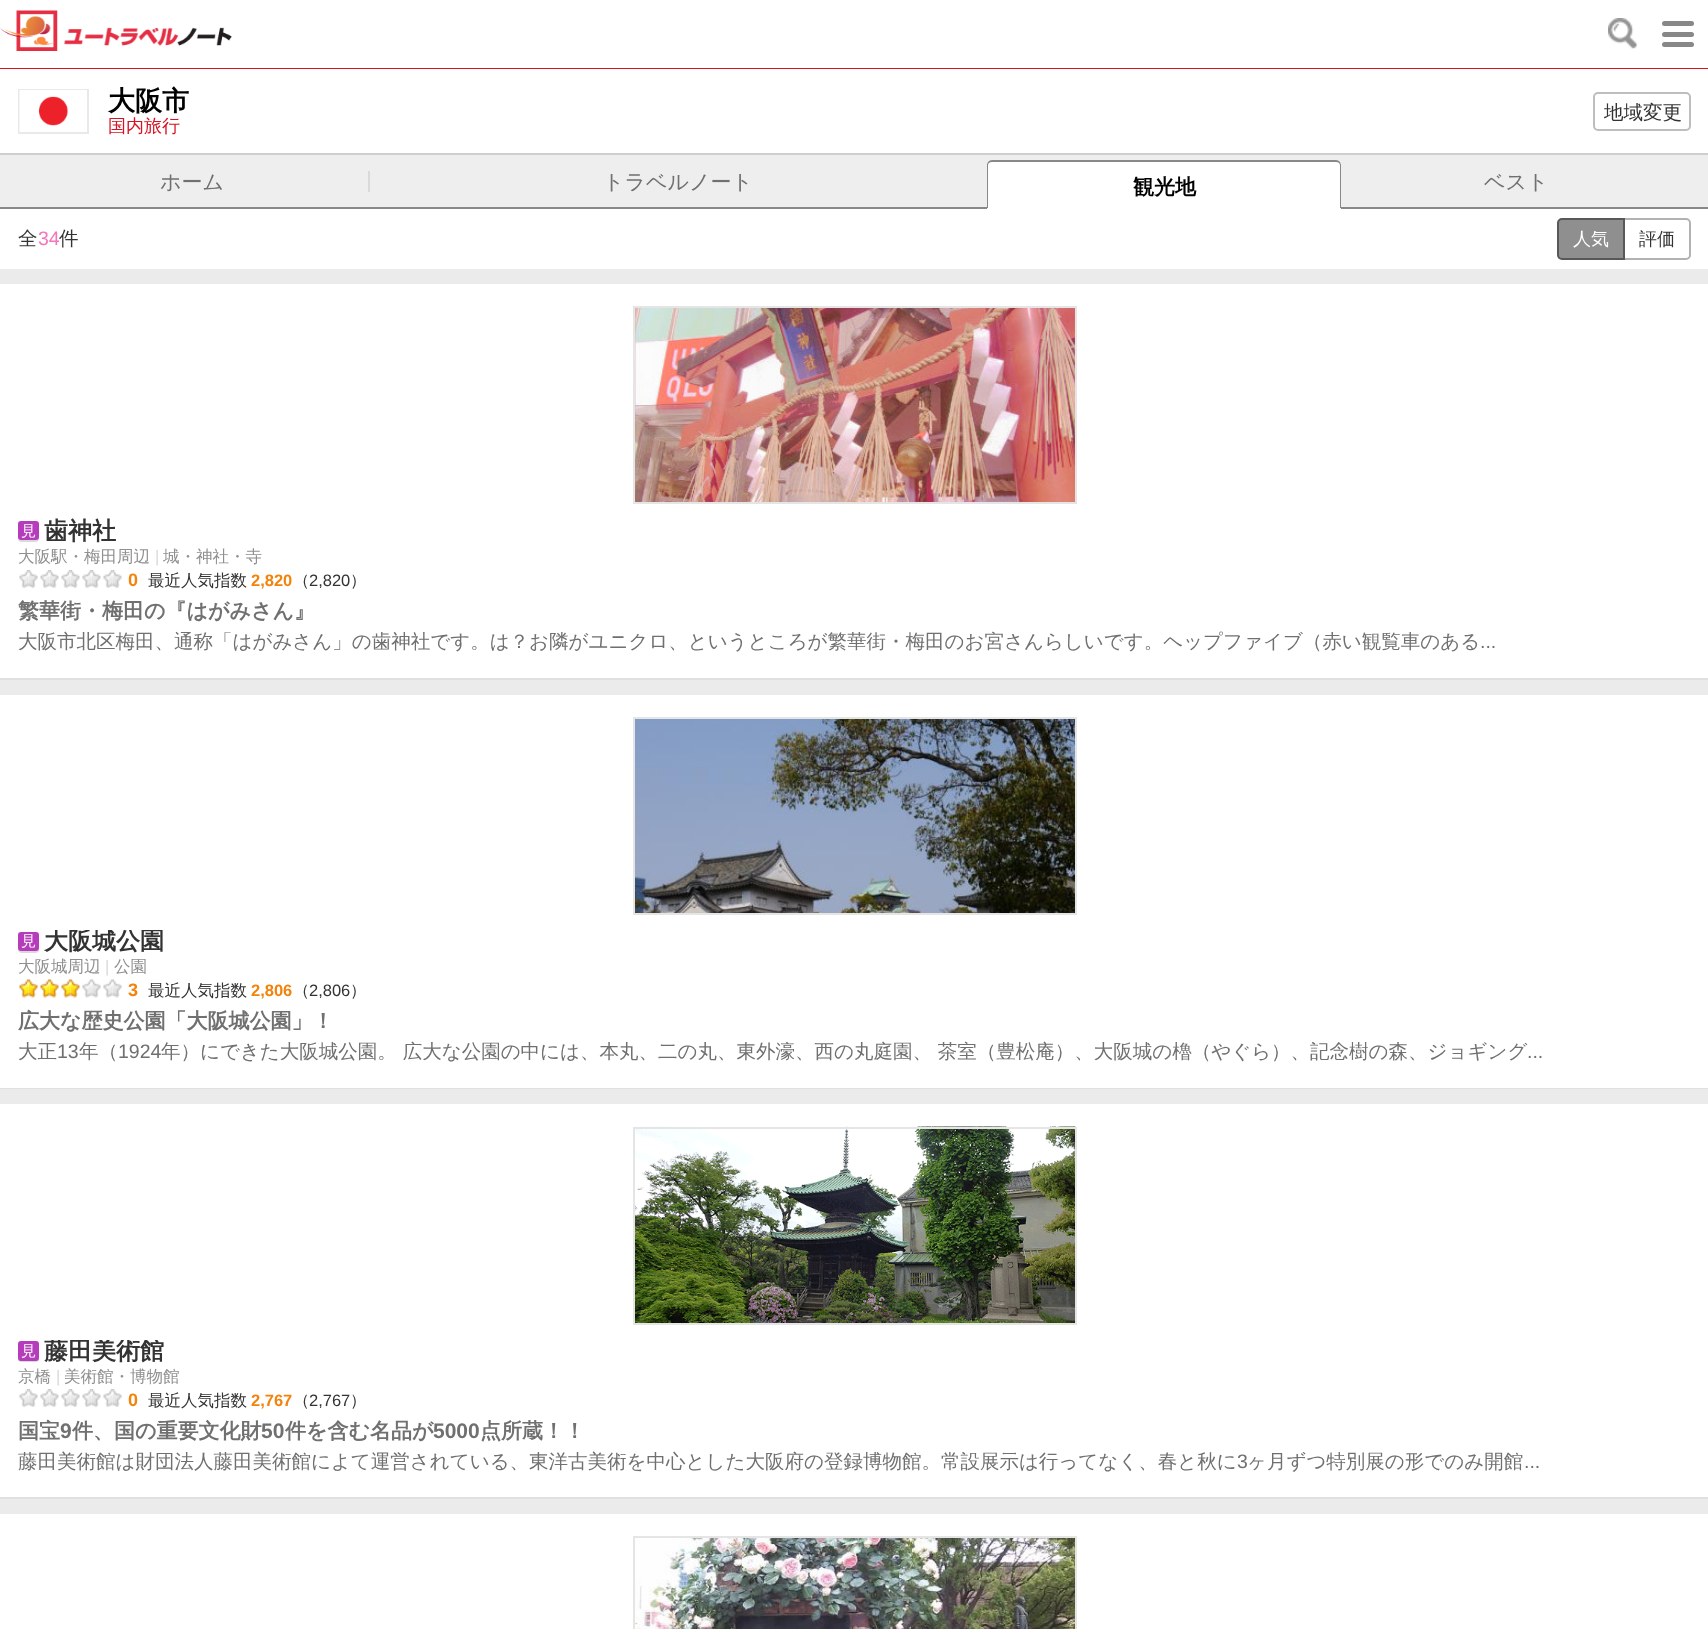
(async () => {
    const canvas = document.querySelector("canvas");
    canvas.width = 1708;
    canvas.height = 1629;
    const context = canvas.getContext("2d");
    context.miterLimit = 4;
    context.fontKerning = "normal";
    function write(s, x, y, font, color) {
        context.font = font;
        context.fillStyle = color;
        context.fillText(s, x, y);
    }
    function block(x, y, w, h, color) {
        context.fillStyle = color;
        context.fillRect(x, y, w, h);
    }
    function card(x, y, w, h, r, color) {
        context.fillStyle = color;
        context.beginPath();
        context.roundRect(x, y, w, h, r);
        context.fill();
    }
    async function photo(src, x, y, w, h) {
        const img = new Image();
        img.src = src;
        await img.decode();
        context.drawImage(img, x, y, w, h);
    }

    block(0, 0, 1708, 1629, "rgb(255, 255, 255)");
    block(0, 68, 1708, 1, "rgb(214, 18, 35)");
    await photo("media/1.png", 0, 10, 232, 41);
    await photo("media/2.png", 1608, 18, 29, 31);
    card(1662, 21, 32, 5, 2.5, "rgb(136, 136, 136)");
    card(1662, 32, 32, 5, 2.5, "rgb(136, 136, 136)");
    card(1662, 42, 32, 5, 2.5, "rgb(136, 136, 136)");
    context.strokeStyle = "rgb(233, 233, 233)";
    context.lineWidth = 2;
    context.strokeRect(19, 90, 69, 43);
    await photo("media/3.png", 19, 90, 68, 42);
    write("大阪市", 108, 110, "bold 27px WenQuanYi Zen Hei", "rgb(0, 0, 0)");
    write("国内旅行", 108, 132, "500 18px WenQuanYi Zen Hei", "rgb(214, 18, 35)");
    context.beginPath();
    context.roundRect(1594, 93, 96, 37, 4);
    context.strokeStyle = "rgb(190, 190, 190)";
    context.stroke();
    write("地域変更", 1604, 119, "500 19.5px WenQuanYi Zen Hei", "rgb(51, 51, 51)");
    block(0, 155, 1708, 52, "rgb(238, 238, 238)");
    block(0, 153, 1708, 2, "rgb(206, 206, 206)");
    block(0, 207, 1708, 2, "rgb(136, 136, 136)");
    write("ホーム", 160, 189, "500 21px WenQuanYi Zen Hei", "rgb(112, 112, 112)");
    block(368, 171, 2, 21, "rgb(217, 217, 217)");
    write("トラベルノート", 603, 189, "500 21px WenQuanYi Zen Hei", "rgb(112, 112, 112)");
    context.fillStyle = "rgb(255, 255, 255)";
    context.beginPath();
    context.roundRect(987, 161, 354, 48, [5, 5, 0, 0]);
    context.fill();
    context.fillStyle = "rgb(136, 136, 136)";
    context.beginPath();
    context.moveTo(992, 160);
    context.lineTo(1336, 160);
    context.bezierCurveTo(1339, 160, 1341, 163, 1341, 165);
    context.lineTo(1341, 208);
    context.lineTo(987, 208);
    context.lineTo(987, 165);
    context.bezierCurveTo(987, 163, 989, 160, 992, 160);
    context.closePath();
    context.moveTo(992, 162);
    context.lineTo(1336, 162);
    context.bezierCurveTo(1338, 162, 1340, 163, 1340, 165);
    context.lineTo(1340, 208);
    context.lineTo(988, 208);
    context.lineTo(988, 165);
    context.bezierCurveTo(988, 163, 990, 162, 992, 162);
    context.closePath();
    context.fill("evenodd");
    write("観光地", 1133, 194, "bold 21px WenQuanYi Zen Hei", "rgb(0, 0, 0)");
    write("ベスト", 1484, 189, "500 21px WenQuanYi Zen Hei", "rgb(112, 112, 112)");
    block(0, 269, 1708, 15, "rgb(235, 235, 235)");
    write("全", 18, 245, "500 19.5px WenQuanYi Zen Hei", "rgb(51, 51, 51)");
    write("34", 38, 245, "19.5px Liberation Sans", "rgb(244, 118, 186)");
    write("件", 59, 245, "500 19.5px WenQuanYi Zen Hei", "rgb(51, 51, 51)");
    context.beginPath();
    context.roundRect(1624, 219, 66, 40, [0, 4, 4, 0]);
    context.strokeStyle = "rgb(178, 178, 178)";
    context.stroke();
    context.fillStyle = "rgb(143, 143, 143)";
    context.beginPath();
    context.roundRect(1558, 219, 66, 40, [4, 0, 0, 4]);
    context.fill();
    context.strokeStyle = "rgb(88, 88, 88)";
    context.stroke();
    write("人気", 1573, 245, "500 18px WenQuanYi Zen Hei", "rgb(255, 255, 255)");
    write("評価", 1639, 245, "500 18px WenQuanYi Zen Hei", "rgb(51, 51, 51)");
    block(0, 678, 1708, 2, "rgb(224, 224, 224)");
    await photo("media/4.png", 635, 308, 440, 194);
    context.strokeStyle = "rgb(229, 229, 229)";
    context.strokeRect(634, 307, 442, 196);
    context.fillStyle = "rgb(217, 217, 217)";
    context.beginPath();
    context.moveTo(18, 537);
    context.bezierCurveTo(18, 541.5, 19, 542, 23.5, 542);
    context.lineTo(33.5, 542);
    context.bezierCurveTo(38, 542, 39, 541.5, 39, 537);
    context.bezierCurveTo(39, 538.5, 37.5, 540, 36, 540);
    context.lineTo(21, 540);
    context.bezierCurveTo(19.5, 540, 18, 538.5, 18, 537);
    context.closePath();
    context.fill();
    context.fillStyle = "rgb(181, 61, 188)";
    context.beginPath();
    context.roundRect(19, 522, 19, 17, 2);
    context.fill();
    context.strokeStyle = "rgb(181, 61, 188)";
    context.stroke();
    context.letterSpacing = "-2px";
    write("見", 21, 536, "500 15px WenQuanYi Zen Hei", "rgb(255, 255, 255)");
    context.letterSpacing = "0px";
    write("歯神社", 44, 539, "bold 24px WenQuanYi Zen Hei", "rgb(51, 51, 51)");
    write("大阪駅・梅田周辺", 18, 562, "500 16.5px WenQuanYi Zen Hei", "rgb(143, 143, 143)");
    write("|", 155, 562, "16.5px Liberation Sans", "rgb(217, 217, 217)");
    write("城・神社・寺", 163, 562, "500 16.5px WenQuanYi Zen Hei", "rgb(143, 143, 143)");
    await photo("media/5.png", 19, 570, 10, 18);
    await photo("media/6.png", 28, 570, 10, 18);
    await photo("media/5.png", 40, 570, 10, 18);
    await photo("media/6.png", 49, 570, 10, 18);
    await photo("media/5.png", 61, 570, 10, 18);
    await photo("media/6.png", 70, 570, 10, 18);
    await photo("media/5.png", 82, 570, 10, 18);
    await photo("media/6.png", 91, 570, 10, 18);
    await photo("media/5.png", 103, 570, 10, 18);
    await photo("media/6.png", 112, 570, 10, 18);
    write("0", 128, 586, "bold 18px Liberation Sans", "rgb(243, 131, 11)");
    write("最近人気指数", 148, 586, "500 16.5px WenQuanYi Zen Hei", "rgb(51, 51, 51)");
    write("2,820", 251, 586, "bold 16.5px Liberation Sans", "rgb(243, 131, 11)");
    write("（", 293, 586, "500 16.5px WenQuanYi Zen Hei", "rgb(51, 51, 51)");
    write("2,820", 309, 586, "16.5px Liberation Sans", "rgb(51, 51, 51)");
    write("）", 350, 586, "500 16.5px WenQuanYi Zen Hei", "rgb(51, 51, 51)");
    write("繁華街・梅田の『はがみさん』", 18, 618, "bold 21px WenQuanYi Zen Hei", "rgb(112, 112, 112)");
    write("大阪市北区梅田、通称「はがみさん」の歯神社です。は？お隣がユニクロ、というところが繁華街・梅田のお宮さんらしいです。ヘップファイブ（赤い観覧車のある", 18, 648, "500 19.5px WenQuanYi Zen Hei", "rgb(112, 112, 112)");
    write("...", 1480, 648, "19.5px Liberation Sans", "rgb(112, 112, 112)");
    block(0, 680, 1708, 15, "rgb(235, 235, 235)");
    block(0, 1088, 1708, 1, "rgb(224, 224, 224)");
    await photo("media/7.png", 635, 719, 440, 194);
    context.strokeStyle = "rgb(229, 229, 229)";
    context.strokeRect(634, 718, 442, 196);
    context.fillStyle = "rgb(217, 217, 217)";
    context.beginPath();
    context.moveTo(18, 948);
    context.bezierCurveTo(18, 952.5, 19, 953, 23.5, 953);
    context.lineTo(33.5, 953);
    context.bezierCurveTo(38, 953, 39, 952.5, 39, 948);
    context.bezierCurveTo(39, 949.5, 37.5, 951, 36, 951);
    context.lineTo(21, 951);
    context.bezierCurveTo(19.5, 951, 18, 949.5, 18, 948);
    context.closePath();
    context.fill();
    context.fillStyle = "rgb(181, 61, 188)";
    context.beginPath();
    context.roundRect(19, 933, 19, 17, 2);
    context.fill();
    context.strokeStyle = "rgb(181, 61, 188)";
    context.stroke();
    context.letterSpacing = "-2px";
    write("見", 21, 946, "500 15px WenQuanYi Zen Hei", "rgb(255, 255, 255)");
    context.save();
    context.beginPath();
    context.rect(18, 930, 1673, 24);
    context.clip();
    context.letterSpacing = "0px";
    write("大阪城公園", 44, 949, "bold 24px WenQuanYi Zen Hei", "rgb(51, 51, 51)");
    context.restore();
    context.letterSpacing = "0px";
    write("大阪城周辺", 18, 972, "500 16.5px WenQuanYi Zen Hei", "rgb(143, 143, 143)");
    write("|", 105, 972, "16.5px Liberation Sans", "rgb(217, 217, 217)");
    write("公園", 114, 972, "500 16.5px WenQuanYi Zen Hei", "rgb(143, 143, 143)");
    await photo("media/8.png", 19, 979, 10, 19);
    await photo("media/9.png", 28, 979, 10, 19);
    await photo("media/8.png", 40, 979, 10, 19);
    await photo("media/9.png", 49, 979, 10, 19);
    await photo("media/8.png", 61, 979, 10, 19);
    await photo("media/9.png", 70, 979, 10, 19);
    await photo("media/10.png", 82, 979, 10, 19);
    await photo("media/11.png", 91, 979, 10, 19);
    await photo("media/10.png", 103, 979, 10, 19);
    await photo("media/11.png", 112, 979, 10, 19);
    write("3", 128, 996, "bold 18px Liberation Sans", "rgb(243, 131, 11)");
    write("最近人気指数", 148, 996, "500 16.5px WenQuanYi Zen Hei", "rgb(51, 51, 51)");
    write("2,806", 251, 996, "bold 16.5px Liberation Sans", "rgb(243, 131, 11)");
    write("（", 293, 996, "500 16.5px WenQuanYi Zen Hei", "rgb(51, 51, 51)");
    write("2,806", 309, 996, "16.5px Liberation Sans", "rgb(51, 51, 51)");
    write("）", 350, 996, "500 16.5px WenQuanYi Zen Hei", "rgb(51, 51, 51)");
    write("広大な歴史公園「大阪城公園」！", 18, 1028, "bold 21px WenQuanYi Zen Hei", "rgb(112, 112, 112)");
    write("大正", 18, 1058, "500 19.5px WenQuanYi Zen Hei", "rgb(112, 112, 112)");
    write("13", 57, 1058, "19.5px Liberation Sans", "rgb(112, 112, 112)");
    write("年（", 79, 1058, "500 19.5px WenQuanYi Zen Hei", "rgb(112, 112, 112)");
    write("1924", 118, 1058, "19.5px Liberation Sans", "rgb(112, 112, 112)");
    write("年）にできた大阪城公園。 広大な公園の中には、本丸、二の丸、東外濠、西の丸庭園、 茶室（豊松庵）、大阪城の櫓（やぐら）、記念樹の森、ジョギング", 161, 1058, "500 19.5px WenQuanYi Zen Hei", "rgb(112, 112, 112)");
    write("...", 1527, 1058, "19.5px Liberation Sans", "rgb(112, 112, 112)");
    block(0, 1089, 1708, 15, "rgb(235, 235, 235)");
    block(0, 1497, 1708, 2, "rgb(224, 224, 224)");
    await photo("media/12.png", 634, 1126, 442, 197);
    context.strokeStyle = "rgb(229, 229, 229)";
    context.strokeRect(634, 1128, 442, 196);
    context.fillStyle = "rgb(217, 217, 217)";
    context.beginPath();
    context.moveTo(18, 1357.5);
    context.bezierCurveTo(18, 1362, 19.5, 1362, 23.5, 1362);
    context.lineTo(33.5, 1362);
    context.bezierCurveTo(37.5, 1362, 39, 1362, 39, 1357.5);
    context.bezierCurveTo(39, 1359, 37.5, 1360.5, 36, 1360.5);
    context.lineTo(21, 1360.5);
    context.bezierCurveTo(19.5, 1360.5, 18, 1359, 18, 1357.5);
    context.closePath();
    context.fill();
    context.fillStyle = "rgb(181, 61, 188)";
    context.beginPath();
    context.roundRect(19, 1342, 19, 18, 2);
    context.fill();
    context.strokeStyle = "rgb(181, 61, 188)";
    context.stroke();
    context.letterSpacing = "-2px";
    write("見", 21, 1356, "500 15px WenQuanYi Zen Hei", "rgb(255, 255, 255)");
    context.save();
    context.beginPath();
    context.rect(18, 1340, 1673, 24);
    context.clip();
    context.letterSpacing = "0px";
    write("藤田美術館", 44, 1359, "bold 24px WenQuanYi Zen Hei", "rgb(51, 51, 51)");
    context.restore();
    context.letterSpacing = "0px";
    write("京橋", 18, 1382, "500 16.5px WenQuanYi Zen Hei", "rgb(143, 143, 143)");
    write("|", 56, 1382, "16.5px Liberation Sans", "rgb(217, 217, 217)");
    write("美術館・博物館", 64, 1382, "500 16.5px WenQuanYi Zen Hei", "rgb(143, 143, 143)");
    await photo("media/5.png", 19, 1389, 10, 18);
    await photo("media/6.png", 28, 1389, 10, 18);
    await photo("media/5.png", 40, 1389, 10, 18);
    await photo("media/6.png", 49, 1389, 10, 18);
    await photo("media/5.png", 61, 1389, 10, 18);
    await photo("media/6.png", 70, 1389, 10, 18);
    await photo("media/5.png", 82, 1389, 10, 18);
    await photo("media/6.png", 91, 1389, 10, 18);
    await photo("media/5.png", 103, 1389, 10, 18);
    await photo("media/6.png", 112, 1389, 10, 18);
    write("0", 128, 1406, "bold 18px Liberation Sans", "rgb(243, 131, 11)");
    write("最近人気指数", 148, 1406, "500 16.5px WenQuanYi Zen Hei", "rgb(51, 51, 51)");
    write("2,767", 251, 1406, "bold 16.5px Liberation Sans", "rgb(243, 131, 11)");
    write("（", 293, 1406, "500 16.5px WenQuanYi Zen Hei", "rgb(51, 51, 51)");
    write("2,767", 309, 1406, "16.5px Liberation Sans", "rgb(51, 51, 51)");
    write("）", 350, 1406, "500 16.5px WenQuanYi Zen Hei", "rgb(51, 51, 51)");
    write("国宝", 18, 1438, "bold 21px WenQuanYi Zen Hei", "rgb(112, 112, 112)");
    write("9", 60, 1438, "bold 21px Liberation Sans", "rgb(112, 112, 112)");
    write("件、国の重要文化財", 72, 1438, "bold 21px WenQuanYi Zen Hei", "rgb(112, 112, 112)");
    write("50", 261, 1438, "bold 21px Liberation Sans", "rgb(112, 112, 112)");
    write("件を含む名品が", 285, 1438, "bold 21px WenQuanYi Zen Hei", "rgb(112, 112, 112)");
    write("5000", 433, 1438, "bold 21px Liberation Sans", "rgb(112, 112, 112)");
    write("点所蔵！！", 480, 1438, "bold 21px WenQuanYi Zen Hei", "rgb(112, 112, 112)");
    write("藤田美術館は財団法人藤田美術館によて運営されている、東洋古美術を中心とした大阪府の登録博物館。常設展示は行ってなく、春と秋に", 18, 1468, "500 19.5px WenQuanYi Zen Hei", "rgb(112, 112, 112)");
    write("3", 1237, 1468, "19.5px Liberation Sans", "rgb(112, 112, 112)");
    write("ヶ月ずつ特別展の形でのみ開館", 1247, 1468, "500 19.5px WenQuanYi Zen Hei", "rgb(112, 112, 112)");
    write("...", 1524, 1468, "19.5px Liberation Sans", "rgb(112, 112, 112)");
    block(0, 1499, 1708, 15, "rgb(235, 235, 235)");
    await photo("media/13.png", 635, 1538, 440, 91);
    context.strokeStyle = "rgb(229, 229, 229)";
    context.strokeRect(634, 1537, 442, 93);
})();
